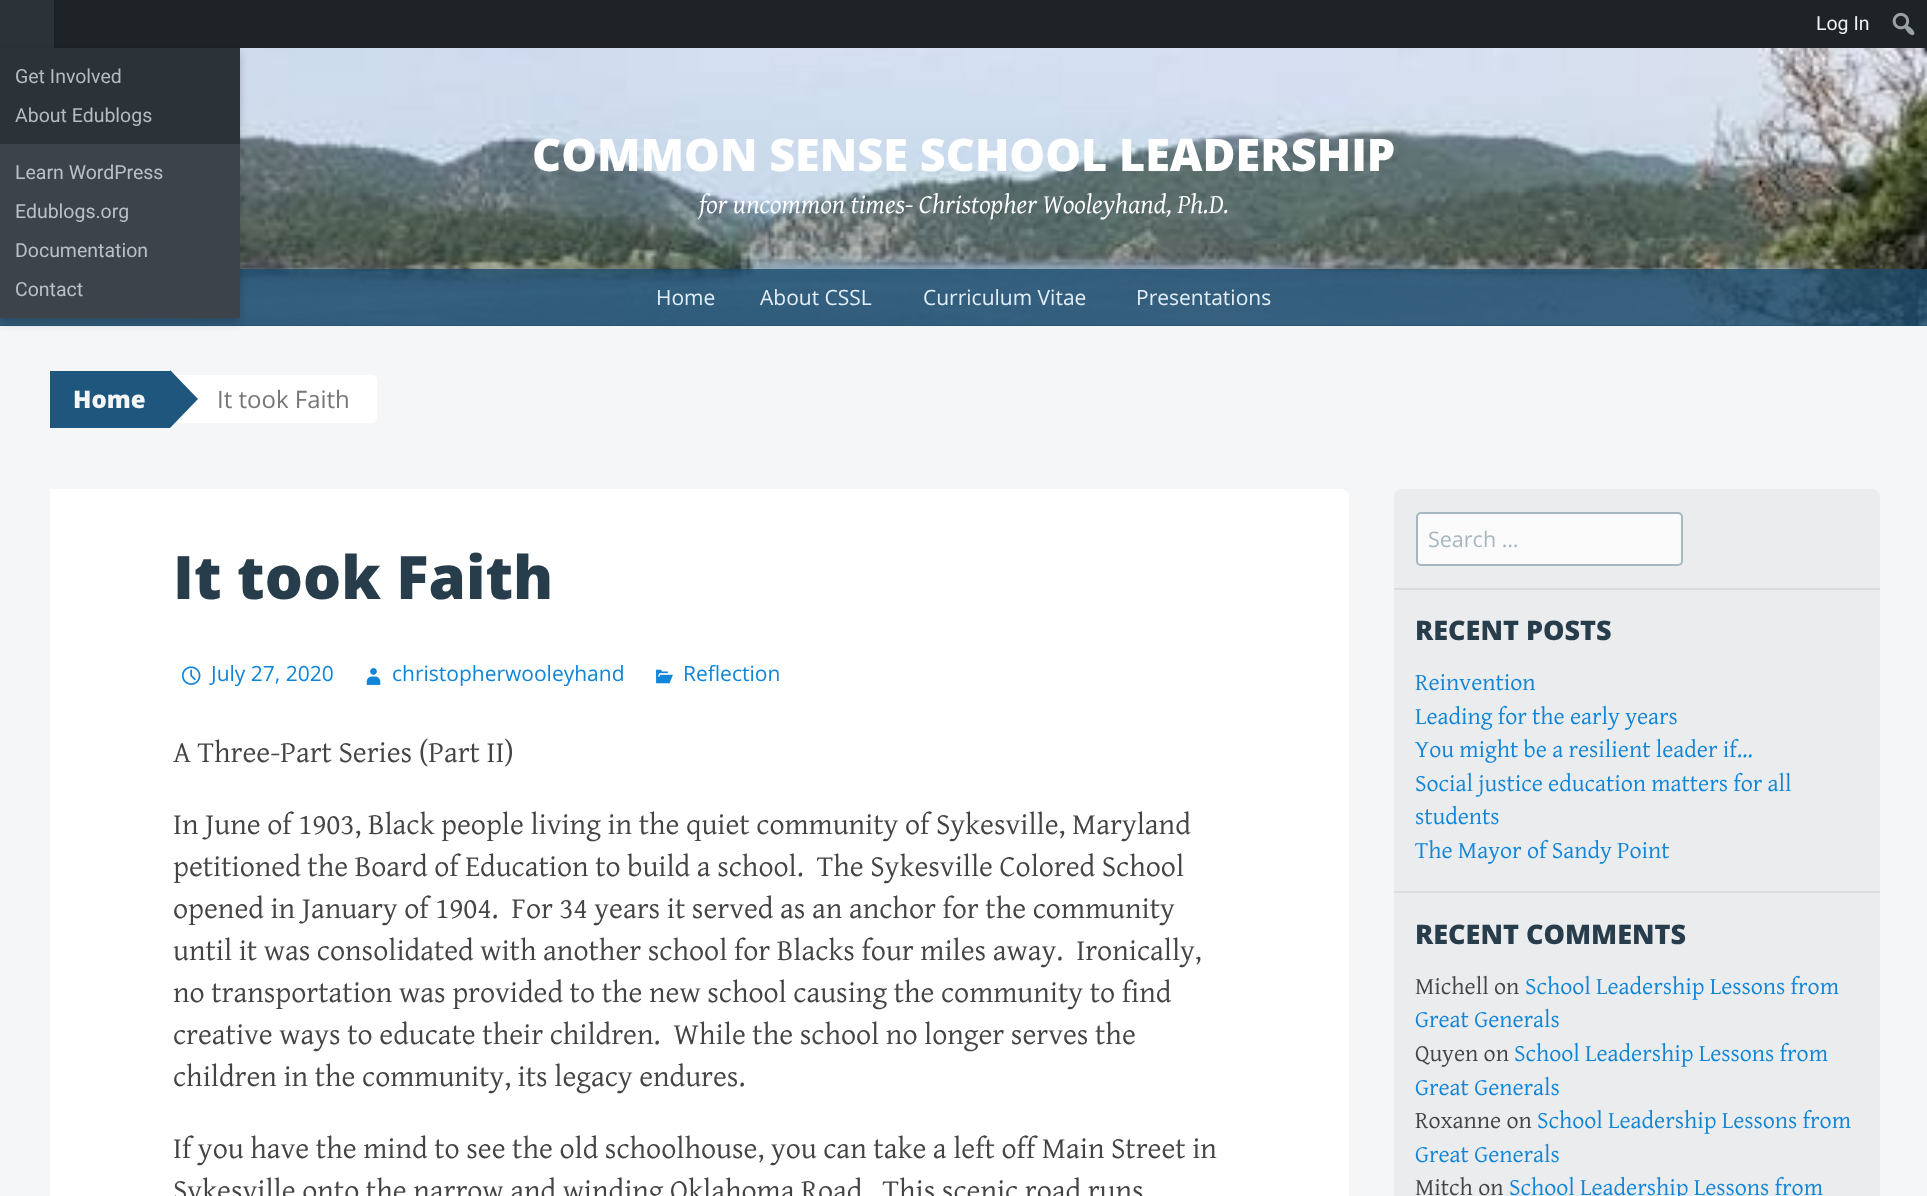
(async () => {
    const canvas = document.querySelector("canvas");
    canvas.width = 1927;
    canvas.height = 1196;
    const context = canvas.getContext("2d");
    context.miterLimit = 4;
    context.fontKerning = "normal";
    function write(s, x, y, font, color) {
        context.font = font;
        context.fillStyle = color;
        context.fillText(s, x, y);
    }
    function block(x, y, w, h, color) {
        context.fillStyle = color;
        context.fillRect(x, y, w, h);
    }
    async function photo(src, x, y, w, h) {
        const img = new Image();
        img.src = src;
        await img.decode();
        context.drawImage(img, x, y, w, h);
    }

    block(0, 0, 1927, 1196, "rgb(245, 246, 247)");
    block(54, 0, 1873, 48, "rgb(29, 35, 39)");
    write("Log In", 1816, 30, "19.5px Roboto", "rgb(240, 240, 241)");
    await photo("media/1.png", 1892, 12, 23, 24);
    block(0, 0, 54, 48, "rgb(44, 51, 56)");
    block(0, 325, 1927, 1, "rgb(31, 86, 125)");
    await photo("media/2.png", 0, 48, 1927, 278);
    block(0, 269, 1927, 57, "rgba(27, 75, 109, 0.8)");
    context.fillStyle = "rgba(0, 0, 0, 0.2)";
    context.filter = "blur(4px)";
    context.beginPath();
    context.rect(0, 53, 240, 270);
    context.fill();
    context.filter = "none";
    block(0, 48, 240, 96, "rgb(44, 51, 56)");
    write("Get Involved", 15, 83, "19.5px Roboto", "rgb(181, 188, 193)");
    write("About Edublogs", 15, 122, "19.5px Roboto", "rgb(181, 188, 193)");
    block(0, 144, 240, 174, "rgb(60, 67, 74)");
    write("Learn WordPress", 15, 179, "19.5px Roboto", "rgb(186, 192, 199)");
    write("Edublogs.org", 15, 218, "19.5px Roboto", "rgb(186, 192, 199)");
    write("Documentation", 15, 257, "19.5px Roboto", "rgb(186, 192, 199)");
    write("Contact", 15, 296, "19.5px Roboto", "rgb(186, 192, 199)");
    write("COMMON SENSE SCHOOL LEADERSHIP", 532, 171, "800 45px Open Sans", "rgb(255, 255, 255)");
    write("for uncommon times- Christopher Wooleyhand, Ph.D.", 699, 213, "italic 27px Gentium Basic", "rgb(255, 255, 255)");
    write("Home", 656, 305, "21px Open Sans", "rgb(226, 238, 247)");
    write("About CSSL", 760, 305, "21px Open Sans", "rgb(226, 238, 247)");
    write("Curriculum Vitae", 923, 305, "21px Open Sans", "rgb(226, 238, 247)");
    write("Presentations", 1136, 305, "21px Open Sans", "rgb(226, 238, 247)");
    block(50, 371, 120, 57, "rgb(31, 86, 125)");
    write("Home", 73, 408, "800 24px Open Sans", "rgb(245, 246, 247)");
    block(174, 375, 44, 48, "rgb(255, 255, 255)");
    context.fillStyle = "rgb(31, 86, 125)";
    context.beginPath();
    context.moveTo(170, 428);
    context.lineTo(170, 370);
    context.lineTo(198, 399);
    context.closePath();
    context.fill();
    context.fillStyle = "rgb(255, 255, 255)";
    context.beginPath();
    context.roundRect(218, 375, 159, 48, [0, 5, 5, 0]);
    context.fill();
    write("It took Faith", 217, 408, "24px Open Sans", "rgb(119, 119, 119)");
    context.fillStyle = "rgb(255, 255, 255)";
    context.beginPath();
    context.moveTo(50, 489);
    context.lineTo(1341, 489);
    context.bezierCurveTo(1345.5, 489, 1349, 492.5, 1349, 497);
    context.lineTo(1349, 1196);
    context.bezierCurveTo(1349, 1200.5, 1345.5, 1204, 1341, 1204);
    context.lineTo(50, 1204);
    context.closePath();
    context.fill();
    write("It took Faith", 173, 599, "800 60px Open Sans", "rgb(40, 61, 75)");
    await photo("media/3.png", 181, 666, 20, 19);
    write("July 27, 2020", 211, 681, "21px Open Sans", "rgb(17, 133, 215)");
    await photo("media/4.png", 366, 668, 15, 17);
    write("christopherwooleyhand", 392, 681, "21px Open Sans", "rgb(17, 133, 215)");
    await photo("media/5.png", 656, 669, 17, 15);
    write("Reflection", 683, 681, "21px Open Sans", "rgb(17, 133, 215)");
    write("A Three-Part Series (Part II)", 173, 762, "30px Gentium Basic", "rgb(68, 68, 68)");
    write("In June of 1903, Black people living in the quiet community of Sykesville, Maryland", 173, 834, "30px Gentium Basic", "rgb(68, 68, 68)");
    write("petitioned the Board of Education to build a school.  The Sykesville Colored School", 173, 876, "30px Gentium Basic", "rgb(68, 68, 68)");
    write("opened in January of 1904.  For 34 years it served as an anchor for the community", 173, 918, "30px Gentium Basic", "rgb(68, 68, 68)");
    write("until it was consolidated with another school for Blacks four miles away.  Ironically,", 173, 960, "30px Gentium Basic", "rgb(68, 68, 68)");
    write("no transportation was provided to the new school causing the community to find", 173, 1002, "30px Gentium Basic", "rgb(68, 68, 68)");
    write("creative ways to educate their children.  While the school no longer serves the", 173, 1044, "30px Gentium Basic", "rgb(68, 68, 68)");
    write("children in the community, its legacy endures.", 173, 1086, "30px Gentium Basic", "rgb(68, 68, 68)");
    write("If you have the mind to see the old schoolhouse, you can take a left off Main Street in", 173, 1158, "30px Gentium Basic", "rgb(68, 68, 68)");
    write("Sykesville onto the narrow and winding Oklahoma Road.  This scenic road runs", 173, 1200, "30px Gentium Basic", "rgb(68, 68, 68)");
    context.fillStyle = "rgb(234, 236, 238)";
    context.beginPath();
    context.roundRect(1394, 489, 486, 99, [8, 8, 0, 0]);
    context.fill();
    context.fillStyle = "rgb(251, 251, 251)";
    context.beginPath();
    context.roundRect(1417, 513, 265, 52, 4);
    context.fill();
    context.strokeStyle = "rgb(166, 183, 192)";
    context.lineWidth = 2;
    context.stroke();
    write("Search …", 1428, 547, "21.5px Open Sans", "rgb(166, 183, 192)");
    block(1394, 590, 486, 301, "rgb(234, 236, 238)");
    block(1394, 588, 486, 2, "rgb(217, 221, 224)");
    write("RECENT POSTS", 1415, 640, "800 27px Open Sans", "rgb(40, 61, 75)");
    write("Reinvention", 1415, 690, "24px Gentium Basic", "rgb(17, 133, 215)");
    write("Leading for the early years", 1415, 724, "24px Gentium Basic", "rgb(17, 133, 215)");
    write("You might be a resilient leader if…", 1415, 757, "24px Gentium Basic", "rgb(17, 133, 215)");
    write("Social justice education matters for all", 1415, 791, "24px Gentium Basic", "rgb(17, 133, 215)");
    write("students", 1415, 824, "24px Gentium Basic", "rgb(17, 133, 215)");
    write("The Mayor of Sandy Point", 1415, 858, "24px Gentium Basic", "rgb(17, 133, 215)");
    block(1394, 893, 486, 303, "rgb(234, 236, 238)");
    block(1394, 891, 486, 2, "rgb(217, 221, 224)");
    write("RECENT COMMENTS", 1415, 944, "800 27px Open Sans", "rgb(40, 61, 75)");
    write("Michell on", 1415, 994, "24px Gentium Basic", "rgb(68, 68, 68)");
    write("School Leadership Lessons from", 1525, 994, "24px Gentium Basic", "rgb(17, 133, 215)");
    write("Great Generals", 1415, 1027, "24px Gentium Basic", "rgb(17, 133, 215)");
    write("Quyen on", 1415, 1061, "24px Gentium Basic", "rgb(68, 68, 68)");
    write("School Leadership Lessons from", 1514, 1061, "24px Gentium Basic", "rgb(17, 133, 215)");
    write("Great Generals", 1415, 1095, "24px Gentium Basic", "rgb(17, 133, 215)");
    write("Roxanne on", 1415, 1128, "24px Gentium Basic", "rgb(68, 68, 68)");
    write("School Leadership Lessons from", 1537, 1128, "24px Gentium Basic", "rgb(17, 133, 215)");
    write("Great Generals", 1415, 1162, "24px Gentium Basic", "rgb(17, 133, 215)");
    write("Mitch on", 1415, 1195, "24px Gentium Basic", "rgb(68, 68, 68)");
    write("School Leadership Lessons from", 1509, 1195, "24px Gentium Basic", "rgb(17, 133, 215)");
})();
